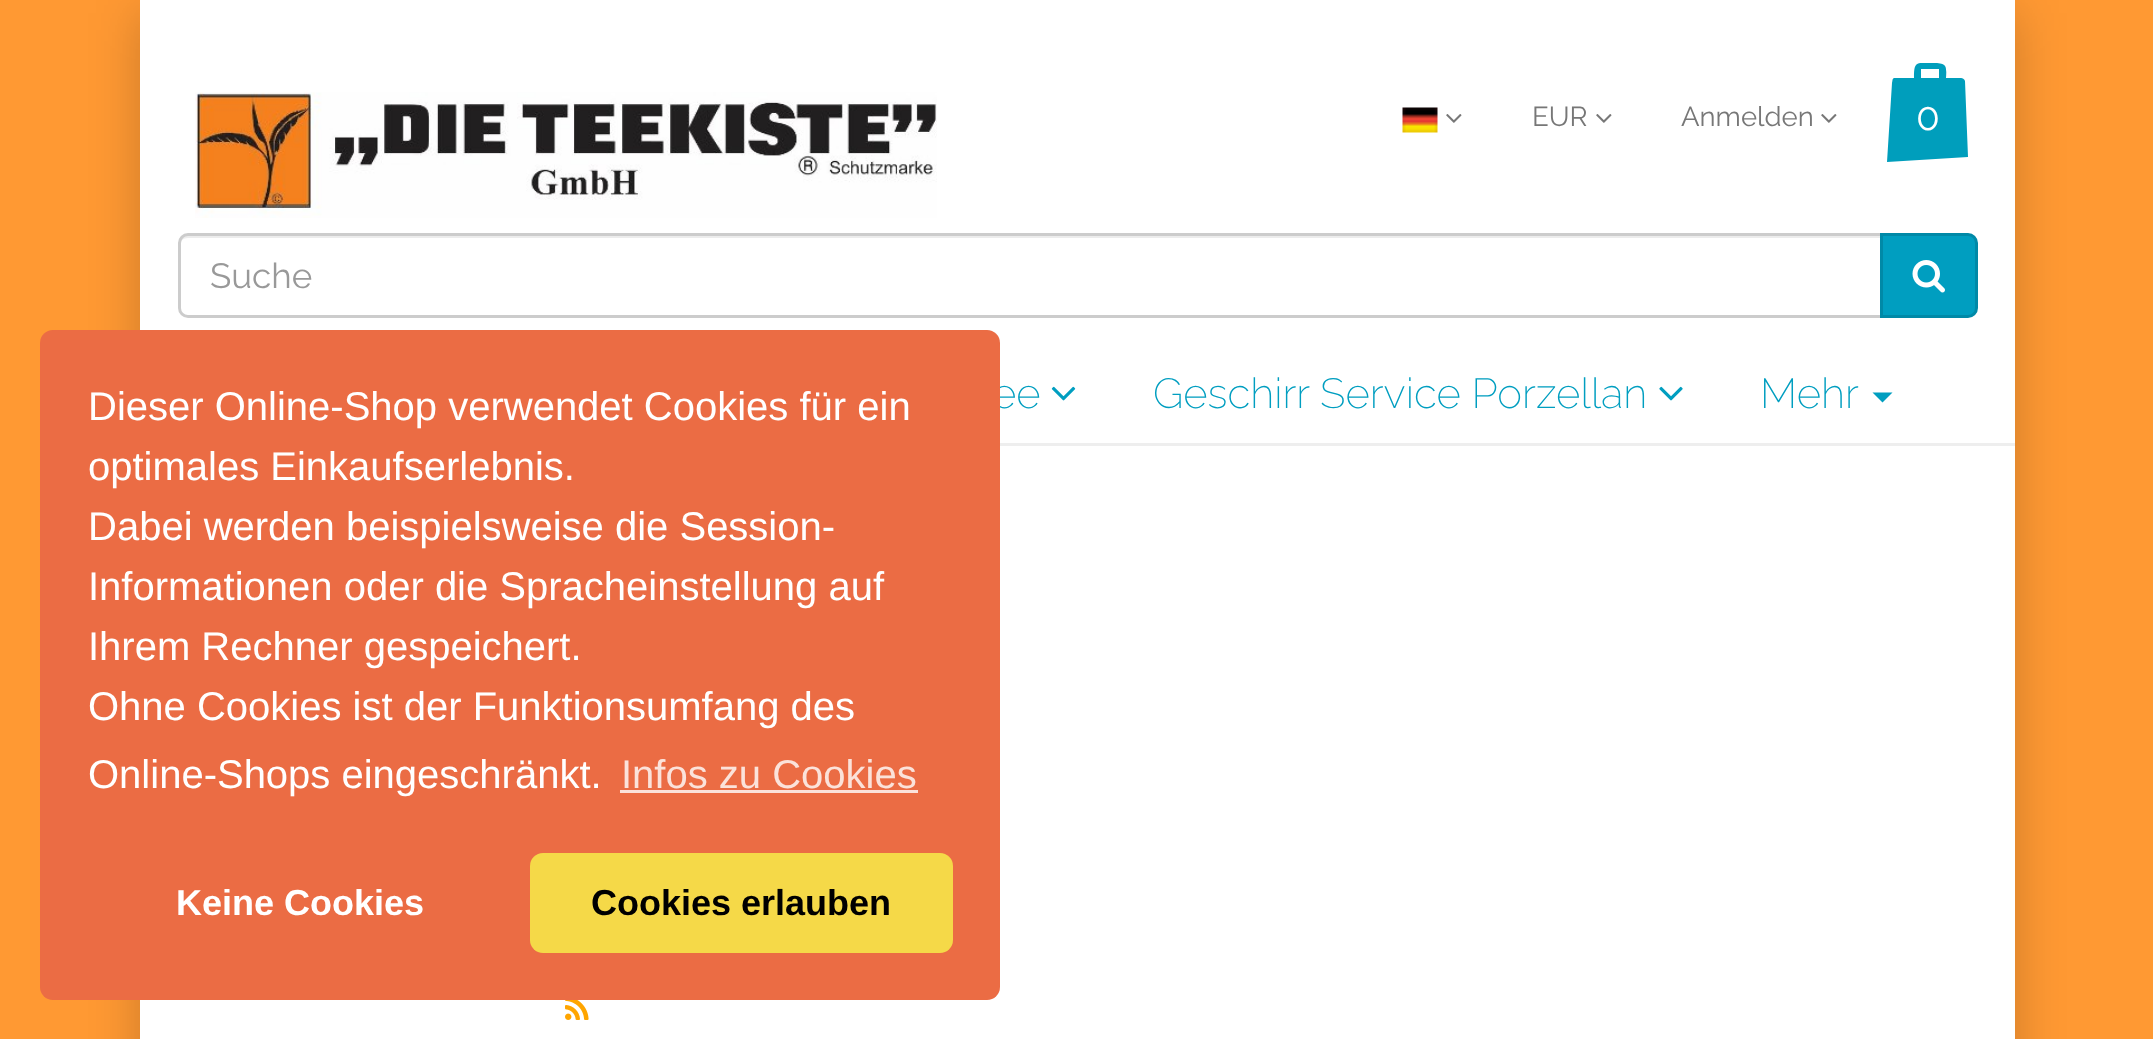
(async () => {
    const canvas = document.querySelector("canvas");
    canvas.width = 2153;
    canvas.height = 1039;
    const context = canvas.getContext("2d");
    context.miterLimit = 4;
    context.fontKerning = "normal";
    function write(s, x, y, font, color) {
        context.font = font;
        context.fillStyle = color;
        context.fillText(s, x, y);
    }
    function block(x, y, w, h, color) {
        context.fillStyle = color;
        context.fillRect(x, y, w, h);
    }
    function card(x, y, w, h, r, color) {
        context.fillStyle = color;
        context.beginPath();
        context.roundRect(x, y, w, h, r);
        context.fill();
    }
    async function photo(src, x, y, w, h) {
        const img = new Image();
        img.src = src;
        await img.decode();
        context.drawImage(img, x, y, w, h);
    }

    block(0, 0, 2153, 1039, "rgb(255, 153, 51)");
    context.fillStyle = "rgba(0, 0, 0, 0.2)";
    context.filter = "blur(25px)";
    context.beginPath();
    context.rect(140, 13, 1875, 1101);
    context.fill();
    context.filter = "none";
    block(140, 0, 1875, 443, "rgb(255, 255, 255)");
    await photo("media/1.png", 195, 92, 742, 126);
    await photo("media/2.png", 1402, 107, 36, 26);
    await photo("media/3.png", 1446, 114, 16, 9);
    write("EUR", 1532, 126, "27.5px Raleway", "rgb(119, 119, 119)");
    await photo("media/3.png", 1596, 114, 16, 9);
    write("Anmelden", 1681, 126, "27.5px Raleway", "rgb(119, 119, 119)");
    await photo("media/3.png", 1821, 114, 16, 9);
    context.save();
    context.beginPath();
    context.rect(1878, 63, 100, 100);
    context.clip();
    context.fillStyle = "rgb(0, 158, 188)";
    context.beginPath();
    context.moveTo(1965, 81);
    context.bezierCurveTo(1964, 77, 1959, 78, 1956, 78);
    context.lineTo(1946, 78);
    context.bezierCurveTo(1947, 64, 1946, 63, 1931, 63);
    context.bezierCurveTo(1915, 62, 1914, 63, 1914, 78);
    context.lineTo(1897, 78);
    context.bezierCurveTo(1892, 78, 1893, 78, 1892, 83);
    context.lineTo(1887, 162);
    context.lineTo(1968, 157);
    context.closePath();
    context.moveTo(1921, 78);
    context.lineTo(1921, 69);
    context.lineTo(1939, 69);
    context.lineTo(1939, 78);
    context.closePath();
    context.fill();
    context.restore();
    write("0", 1916, 130, "39px Raleway", "rgb(255, 255, 255)");
    context.fillStyle = "rgb(236, 236, 236)";
    context.beginPath();
    context.moveTo(188, 238);
    context.lineTo(1880, 238);
    context.lineTo(1880, 235);
    context.lineTo(188, 235);
    context.bezierCurveTo(182, 235, 180, 240, 180, 245);
    context.bezierCurveTo(180, 241, 183, 238, 188, 238);
    context.closePath();
    context.fill();
    context.beginPath();
    context.roundRect(179.5, 234.5, 1702, 82, [8.5, 0, 0, 8.5]);
    context.strokeStyle = "rgb(204, 204, 204)";
    context.lineWidth = 3;
    context.stroke();
    write("Suche", 210, 288, "35px Raleway", "rgb(153, 153, 153)");
    context.fillStyle = "rgb(0, 158, 192)";
    context.beginPath();
    context.roundRect(1881.5, 234.5, 95, 82, [0, 8.5, 8.5, 0]);
    context.fill();
    context.strokeStyle = "rgb(0, 137, 167)";
    context.stroke();
    await photo("media/4.png", 1912, 260, 33, 33);
    block(1000, 443, 1015, 3, "rgb(238, 238, 238)");
    write("ee", 992, 408, "200 42px Raleway", "rgb(0, 158, 192)");
    await photo("media/5.png", 1051, 386, 25, 15);
    write("Geschirr Service Porzellan", 1153, 408, "200 42px Raleway", "rgb(0, 158, 192)");
    await photo("media/6.png", 1659, 386, 24, 15);
    write("Mehr", 1760, 408, "200 42px Raleway", "rgb(0, 158, 192)");
    context.beginPath();
    context.moveTo(1872.5, 392.5);
    context.lineTo(1892.5, 392.5);
    context.lineTo(1882.5, 402.5);
    context.closePath();
    context.fill();
    block(140, 446, 1875, 593, "rgb(255, 255, 255)");
    await photo("media/7.png", 565, 1000, 24, 20);
    card(40, 330, 960, 670, 13, "rgb(235, 108, 68)");
    write("Dieser Online-Shop verwendet Cookies für ein", 88, 420, "40px Liberation Sans", "rgb(255, 255, 255)");
    write("optimales Einkaufserlebnis.", 88, 480, "40px Liberation Sans", "rgb(255, 255, 255)");
    write("Dabei werden beispielsweise die Session-", 88, 540, "40px Liberation Sans", "rgb(255, 255, 255)");
    write("Informationen oder die Spracheinstellung auf", 88, 600, "40px Liberation Sans", "rgb(255, 255, 255)");
    write("Ihrem Rechner gespeichert.", 88, 660, "40px Liberation Sans", "rgb(255, 255, 255)");
    write("Ohne Cookies ist der Funktionsumfang des", 88, 720, "40px Liberation Sans", "rgb(255, 255, 255)");
    write("Online-Shops eingeschränkt.", 88, 788, "40px Liberation Sans", "rgb(255, 255, 255)");
    write("Infos zu Cookies", 621, 788, "40px Liberation Sans", "rgb(251, 226, 218)");
    block(620, 790, 298, 3, "rgb(251, 226, 218)");
    write("Keine Cookies", 176, 915, "bold 36px Liberation Sans", "rgb(255, 255, 255)");
    card(530, 853, 423, 100, 13, "rgb(245, 217, 72)");
    write("Cookies erlauben", 591, 915, "bold 36px Liberation Sans", "rgb(0, 0, 0)");
})();
